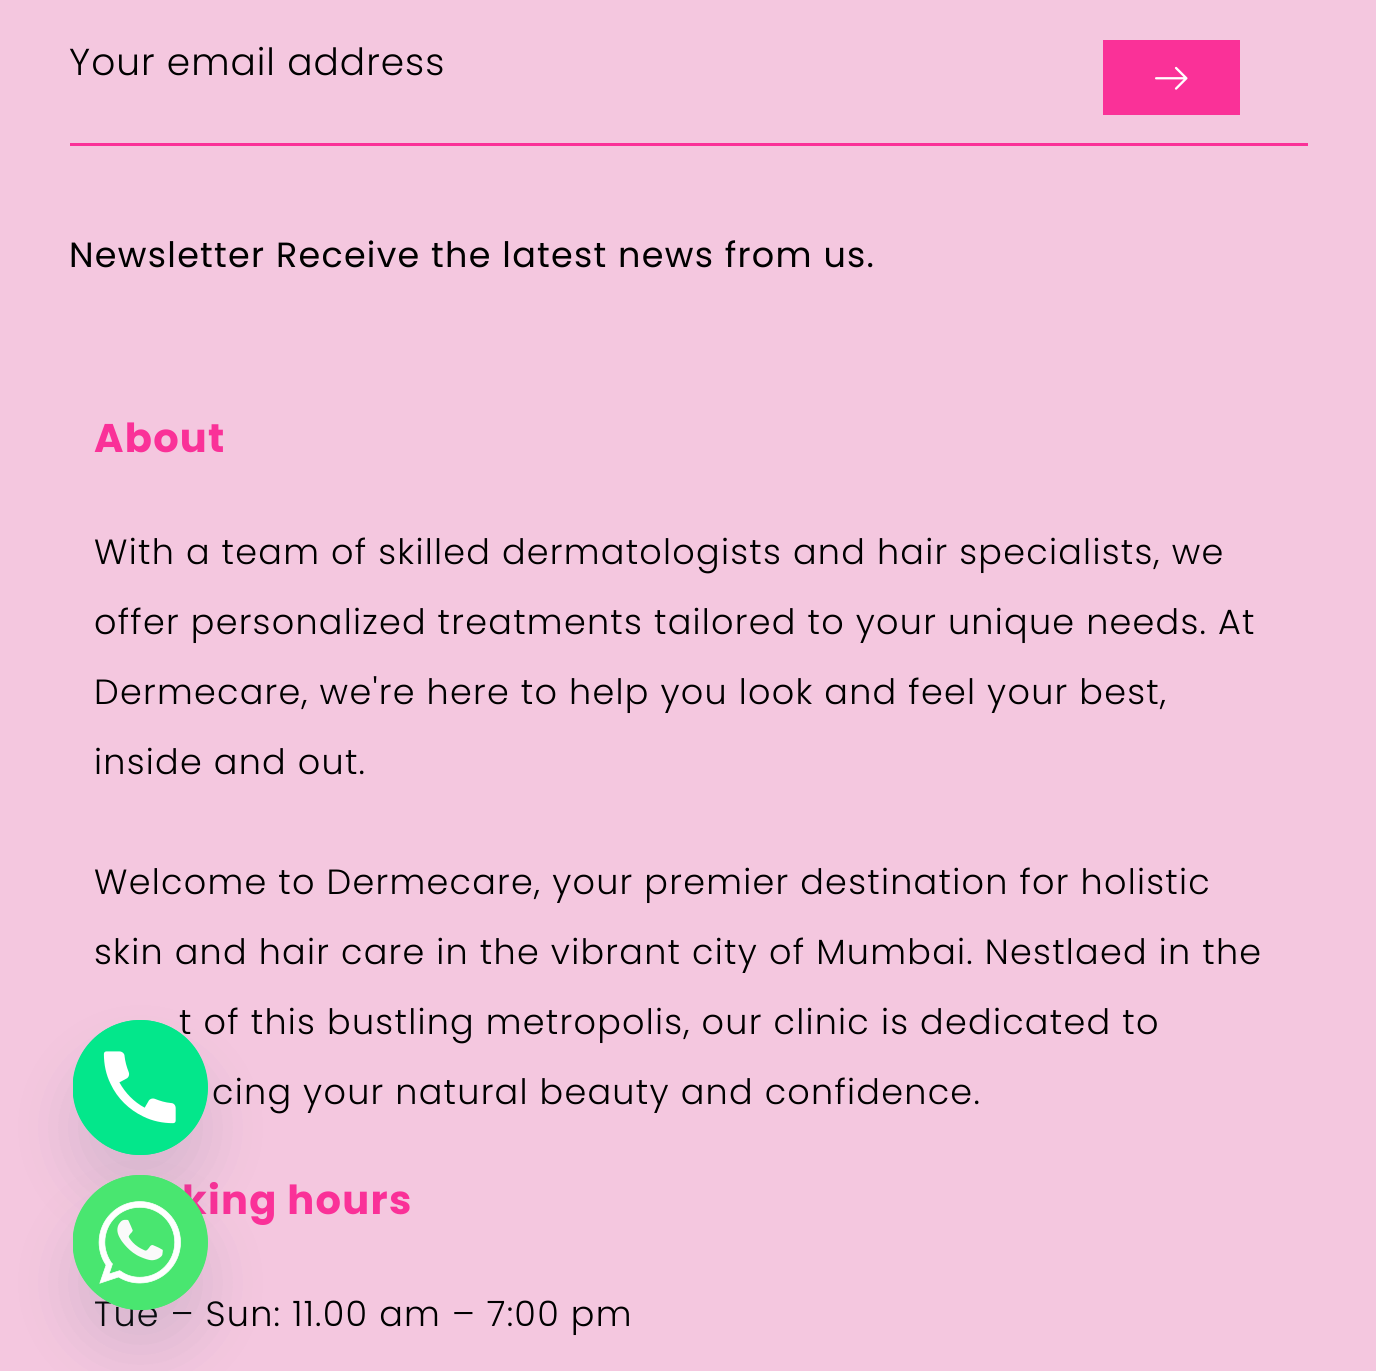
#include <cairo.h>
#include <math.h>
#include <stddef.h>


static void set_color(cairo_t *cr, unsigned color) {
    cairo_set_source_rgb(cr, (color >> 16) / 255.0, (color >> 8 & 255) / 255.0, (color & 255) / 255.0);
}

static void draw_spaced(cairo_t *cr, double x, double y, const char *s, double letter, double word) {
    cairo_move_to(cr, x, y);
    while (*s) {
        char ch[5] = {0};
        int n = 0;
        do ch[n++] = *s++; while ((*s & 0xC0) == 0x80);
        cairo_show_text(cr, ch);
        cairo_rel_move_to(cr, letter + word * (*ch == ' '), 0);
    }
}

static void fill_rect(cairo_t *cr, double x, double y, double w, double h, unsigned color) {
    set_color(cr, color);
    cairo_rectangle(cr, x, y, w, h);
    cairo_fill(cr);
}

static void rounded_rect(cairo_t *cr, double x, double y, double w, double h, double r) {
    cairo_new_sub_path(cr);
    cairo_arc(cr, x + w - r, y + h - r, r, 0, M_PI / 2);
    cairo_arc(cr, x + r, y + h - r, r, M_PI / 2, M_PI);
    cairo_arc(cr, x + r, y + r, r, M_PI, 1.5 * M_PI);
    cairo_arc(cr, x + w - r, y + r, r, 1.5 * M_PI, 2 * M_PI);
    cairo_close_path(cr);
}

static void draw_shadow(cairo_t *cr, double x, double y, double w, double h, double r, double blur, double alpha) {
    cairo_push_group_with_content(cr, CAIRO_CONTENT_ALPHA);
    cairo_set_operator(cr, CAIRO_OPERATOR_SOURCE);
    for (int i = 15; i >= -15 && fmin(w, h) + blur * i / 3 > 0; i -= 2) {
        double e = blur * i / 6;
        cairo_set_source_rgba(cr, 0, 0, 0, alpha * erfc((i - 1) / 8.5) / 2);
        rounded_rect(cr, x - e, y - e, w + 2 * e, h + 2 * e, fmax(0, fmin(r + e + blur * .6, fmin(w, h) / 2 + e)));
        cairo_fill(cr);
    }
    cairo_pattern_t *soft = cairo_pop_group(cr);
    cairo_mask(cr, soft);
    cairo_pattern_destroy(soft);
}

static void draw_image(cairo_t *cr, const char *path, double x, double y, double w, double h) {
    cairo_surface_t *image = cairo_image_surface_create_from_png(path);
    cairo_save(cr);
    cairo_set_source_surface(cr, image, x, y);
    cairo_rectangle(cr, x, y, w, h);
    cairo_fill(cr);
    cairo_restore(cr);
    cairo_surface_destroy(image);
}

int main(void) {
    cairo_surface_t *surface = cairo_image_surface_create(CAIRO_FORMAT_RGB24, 1376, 1371);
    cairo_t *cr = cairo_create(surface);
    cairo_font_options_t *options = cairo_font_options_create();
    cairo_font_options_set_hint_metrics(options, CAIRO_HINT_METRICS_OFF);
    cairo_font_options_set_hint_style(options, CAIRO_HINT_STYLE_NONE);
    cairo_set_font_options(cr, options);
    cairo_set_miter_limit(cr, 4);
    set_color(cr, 0xF4C7DF);
    cairo_paint(cr);
    fill_rect(cr, 70, 143, 1238, 3, 0xFA3198);
    cairo_select_font_face(cr, "Poppins Light", CAIRO_FONT_SLANT_NORMAL, CAIRO_FONT_WEIGHT_NORMAL);
    cairo_set_font_size(cr, 37.5);
    set_color(cr, 0x000000);
    draw_spaced(cr, 69, 75, "Your email address", 1, 0);
    fill_rect(cr, 1103, 40, 137, 75, 0xFA3198);
    draw_image(cr, "assets/img1.png", 1155, 66, 33, 24);
    cairo_select_font_face(cr, "Poppins", CAIRO_FONT_SLANT_NORMAL, CAIRO_FONT_WEIGHT_NORMAL);
    cairo_set_font_size(cr, 35);
    set_color(cr, 0x000000);
    draw_spaced(cr, 69, 267, "Newsletter Receive the latest news from us.", 1.25, 0);
    cairo_select_font_face(cr, "Poppins", CAIRO_FONT_SLANT_NORMAL, CAIRO_FONT_WEIGHT_BOLD);
    cairo_set_font_size(cr, 40);
    set_color(cr, 0xFA3198);
    draw_spaced(cr, 94, 452, "About", 1.25, 0);
    cairo_select_font_face(cr, "Poppins Light", CAIRO_FONT_SLANT_NORMAL, CAIRO_FONT_WEIGHT_NORMAL);
    cairo_set_font_size(cr, 35);
    set_color(cr, 0x000000);
    draw_spaced(cr, 94, 564, "With a team of skilled dermatologists and hair specialists, we", 1.25, 0);
    draw_spaced(cr, 94, 634, "offer personalized treatments tailored to your unique needs. At", 1.25, 0);
    draw_spaced(cr, 94, 704, "Dermecare, we're here to help you look and feel your best,", 1.25, 0);
    draw_spaced(cr, 94, 774, "inside and out.", 1.25, 0);
    draw_spaced(cr, 94, 894, "Welcome to Dermecare, your premier destination for holistic", 1.25, 0);
    draw_spaced(cr, 94, 964, "skin and hair care in the vibrant city of Mumbai. Nestlaed in the", 1.25, 0);
    draw_spaced(cr, 179, 1034, "t of this bustling metropolis, our clinic is dedicated to", 1.25, 0);
    draw_spaced(cr, 212, 1104, "cing your natural beauty and confidence.", 1.25, 0);
    cairo_select_font_face(cr, "Poppins", CAIRO_FONT_SLANT_NORMAL, CAIRO_FONT_WEIGHT_BOLD);
    cairo_set_font_size(cr, 40);
    set_color(cr, 0xFA3198);
    draw_spaced(cr, 182, 1214, "king hours", 1.25, 0);
    cairo_select_font_face(cr, "Poppins Light", CAIRO_FONT_SLANT_NORMAL, CAIRO_FONT_WEIGHT_NORMAL);
    cairo_set_font_size(cr, 35);
    set_color(cr, 0x000000);
    draw_spaced(cr, 94, 1326, "Tue – Sun: 11.00 am – 7:00 pm", 1.25, 0);
    set_color(cr, 0x49687E);
    draw_shadow(cr, 73, 1060, 135, 135, 67.5, 30, 0.16);
    set_color(cr, 0x03E78B);
    cairo_arc(cr, 140.5, 1087.5, 67.5, 0, 2 * M_PI);
    cairo_fill(cr);
    draw_image(cr, "assets/img2.png", 73, 1020, 135, 135);
    set_color(cr, 0x49687E);
    draw_shadow(cr, 73, 1215, 135, 135, 67.5, 30, 0.16);
    set_color(cr, 0x49E670);
    cairo_arc(cr, 140.5, 1242.5, 67.5, 0, 2 * M_PI);
    cairo_fill(cr);
    draw_image(cr, "assets/img3.png", 73, 1175, 135, 135);
    cairo_surface_write_to_png(surface, "output.png");
    cairo_font_options_destroy(options);
    cairo_destroy(cr);
    cairo_surface_destroy(surface);
    return 0;
}
